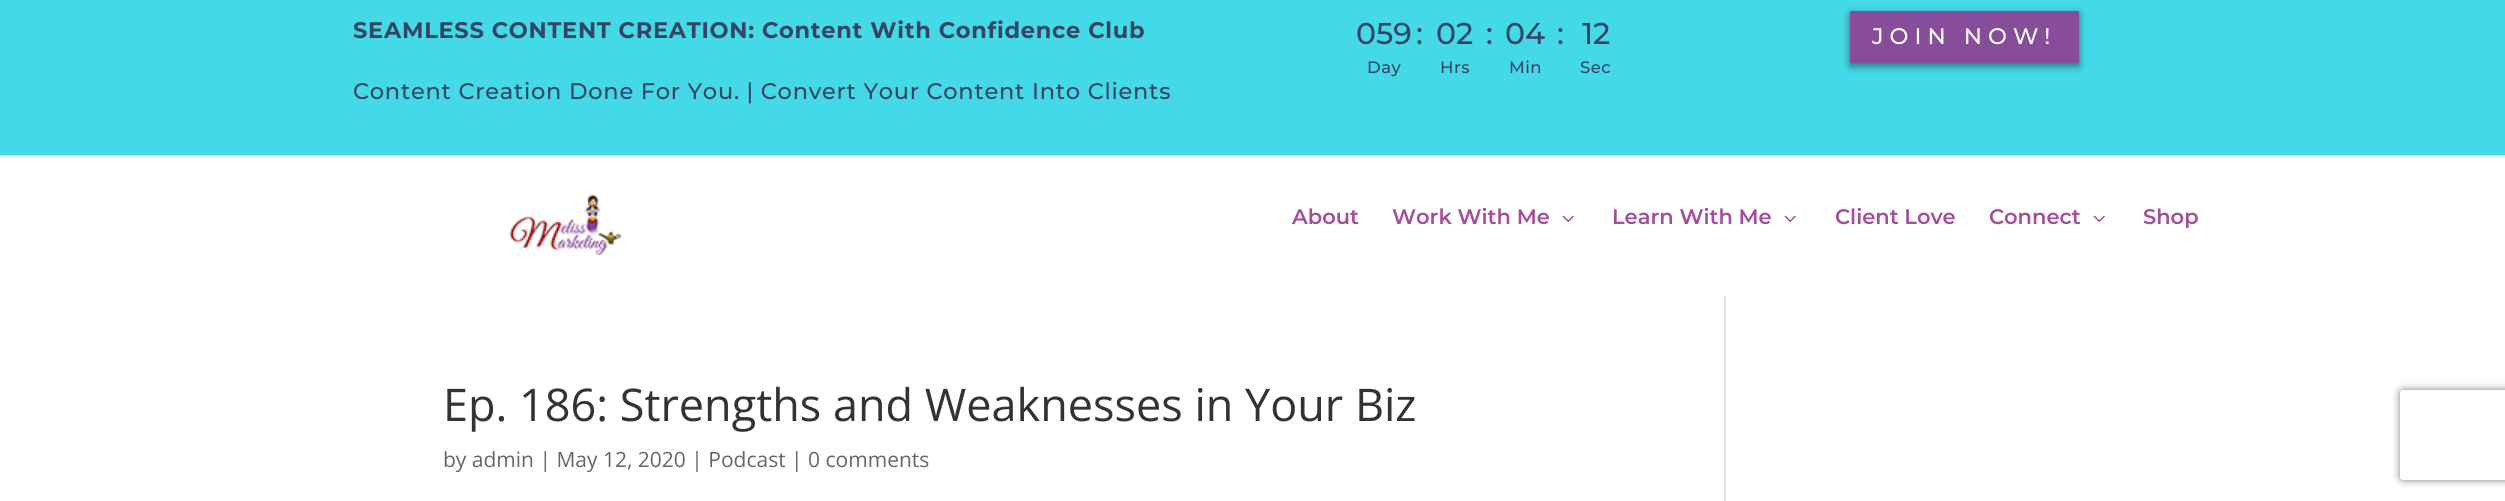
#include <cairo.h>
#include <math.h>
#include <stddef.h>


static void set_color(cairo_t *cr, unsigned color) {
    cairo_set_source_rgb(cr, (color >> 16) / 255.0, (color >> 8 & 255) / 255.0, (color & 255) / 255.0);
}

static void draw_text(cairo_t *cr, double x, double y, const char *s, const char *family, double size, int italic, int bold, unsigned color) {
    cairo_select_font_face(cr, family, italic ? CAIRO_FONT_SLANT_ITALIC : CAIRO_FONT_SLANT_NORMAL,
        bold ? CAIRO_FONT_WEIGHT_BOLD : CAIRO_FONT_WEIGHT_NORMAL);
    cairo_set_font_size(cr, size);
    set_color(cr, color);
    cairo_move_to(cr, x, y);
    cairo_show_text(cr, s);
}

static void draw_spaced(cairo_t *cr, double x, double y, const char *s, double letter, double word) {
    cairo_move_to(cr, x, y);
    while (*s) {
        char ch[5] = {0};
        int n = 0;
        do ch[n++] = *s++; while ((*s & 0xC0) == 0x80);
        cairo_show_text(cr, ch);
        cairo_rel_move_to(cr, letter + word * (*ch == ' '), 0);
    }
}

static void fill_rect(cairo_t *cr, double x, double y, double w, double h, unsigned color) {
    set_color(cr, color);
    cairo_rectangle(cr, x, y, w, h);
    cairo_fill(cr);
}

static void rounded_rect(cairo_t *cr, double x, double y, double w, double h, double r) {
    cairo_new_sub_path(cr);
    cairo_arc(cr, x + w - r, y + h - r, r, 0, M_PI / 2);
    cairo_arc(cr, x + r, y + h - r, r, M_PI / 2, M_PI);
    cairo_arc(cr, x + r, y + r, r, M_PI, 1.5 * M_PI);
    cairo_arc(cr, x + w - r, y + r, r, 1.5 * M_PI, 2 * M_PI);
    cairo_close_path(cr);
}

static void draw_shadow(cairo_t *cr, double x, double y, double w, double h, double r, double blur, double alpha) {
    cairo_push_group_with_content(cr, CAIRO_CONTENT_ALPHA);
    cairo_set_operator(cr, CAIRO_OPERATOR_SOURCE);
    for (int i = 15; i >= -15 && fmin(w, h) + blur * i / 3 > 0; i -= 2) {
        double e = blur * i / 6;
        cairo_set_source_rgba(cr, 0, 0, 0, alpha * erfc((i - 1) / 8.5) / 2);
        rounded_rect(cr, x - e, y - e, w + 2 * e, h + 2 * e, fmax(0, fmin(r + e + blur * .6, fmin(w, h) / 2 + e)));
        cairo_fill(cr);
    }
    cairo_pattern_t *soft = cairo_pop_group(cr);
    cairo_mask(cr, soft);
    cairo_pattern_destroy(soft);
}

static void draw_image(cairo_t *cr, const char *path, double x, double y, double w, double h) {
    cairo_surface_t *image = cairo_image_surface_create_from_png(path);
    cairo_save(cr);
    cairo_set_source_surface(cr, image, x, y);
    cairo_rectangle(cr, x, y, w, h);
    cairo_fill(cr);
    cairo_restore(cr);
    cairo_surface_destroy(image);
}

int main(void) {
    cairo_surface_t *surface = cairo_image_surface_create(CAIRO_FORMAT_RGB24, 2505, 501);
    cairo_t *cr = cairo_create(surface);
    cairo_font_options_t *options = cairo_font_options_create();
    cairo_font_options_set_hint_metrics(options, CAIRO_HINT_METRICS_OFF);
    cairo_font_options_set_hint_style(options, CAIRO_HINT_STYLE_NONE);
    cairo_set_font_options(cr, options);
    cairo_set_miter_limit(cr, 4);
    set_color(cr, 0xFFFFFF);
    cairo_paint(cr);
    fill_rect(cr, 0, 0, 2505, 155, 0x44D9E6);
    cairo_select_font_face(cr, "Montserrat", CAIRO_FONT_SLANT_NORMAL, CAIRO_FONT_WEIGHT_BOLD);
    cairo_set_font_size(cr, 22.5);
    set_color(cr, 0x344563);
    draw_spaced(cr, 353, 38, "SEAMLESS CONTENT CREATION: Content With Confidence Club", 0.75, 0);
    cairo_select_font_face(cr, "Montserrat Medium", CAIRO_FONT_SLANT_NORMAL, CAIRO_FONT_WEIGHT_NORMAL);
    draw_spaced(cr, 353, 99, "Content Creation Done For You. | Convert Your Content Into Clients", 0.75, 0);
    draw_text(cr, 1356, 44, "059", "Montserrat Medium", 30, 0, 0, 0x344563);
    cairo_set_font_size(cr, 16.5);
    draw_spaced(cr, 1367, 73, "Day", 0.5, 0);
    draw_text(cr, 1416, 44, ":", "Montserrat Medium", 30, 0, 0, 0x344563);
    draw_text(cr, 1436, 44, "02", "Montserrat Medium", 30, 0, 0, 0x344563);
    cairo_set_font_size(cr, 16.5);
    draw_spaced(cr, 1440, 73, "Hrs", 0.5, 0);
    draw_text(cr, 1486, 44, ":", "Montserrat Medium", 30, 0, 0, 0x344563);
    draw_text(cr, 1505, 44, "04", "Montserrat Medium", 30, 0, 0, 0x344563);
    cairo_set_font_size(cr, 16.5);
    draw_spaced(cr, 1509, 73, "Min", 0.5, 0);
    draw_text(cr, 1557, 44, ":", "Montserrat Medium", 30, 0, 0, 0x344563);
    draw_text(cr, 1582, 44, "12", "Montserrat Medium", 30, 0, 0, 0x344563);
    cairo_set_font_size(cr, 16.5);
    draw_spaced(cr, 1580, 73, "Sec", 0.5, 0);
    set_color(cr, 0x000000);
    draw_shadow(cr, 1850, 14, 229, 52, 0, 4, 0.48);
    fill_rect(cr, 1850, 11, 229, 52, 0x874C9A);
    cairo_set_font_size(cr, 22.5);
    set_color(cr, 0xFFFFFF);
    draw_spaced(cr, 1872, 44, "JOIN NOW!", 6, 0);
    draw_image(cr, "assets/img1.png", 509, 195, 113, 60);
    draw_text(cr, 1292, 224, "About", "Montserrat SemiBold", 21, 0, 0, 0xA64C9A);
    draw_text(cr, 1392, 224, "Work With Me", "Montserrat SemiBold", 21, 0, 0, 0xA64C9A);
    draw_image(cr, "assets/img2.png", 1562, 215, 12, 7);
    draw_text(cr, 1612, 224, "Learn With Me", "Montserrat SemiBold", 21, 0, 0, 0xA64C9A);
    draw_image(cr, "assets/img2.png", 1784, 215, 12, 7);
    draw_text(cr, 1835, 224, "Client Love", "Montserrat SemiBold", 21, 0, 0, 0xA64C9A);
    draw_text(cr, 1989, 224, "Connect", "Montserrat SemiBold", 21, 0, 0, 0xA64C9A);
    draw_image(cr, "assets/img2.png", 2093, 215, 12, 7);
    draw_text(cr, 2143, 224, "Shop", "Montserrat SemiBold", 21, 0, 0, 0xA64C9A);
    draw_text(cr, 443, 421, "Ep. 186: Strengths and Weaknesses in Your Biz", "Open Sans", 45, 0, 0, 0x333333);
    draw_text(cr, 443, 467, "by admin | May 12, 2020 | Podcast | 0 comments", "Open Sans", 21, 0, 0, 0x666666);
    fill_rect(cr, 1724, 296, 2, 205, 0xE2E2E2);
    cairo_save(cr);
    cairo_set_fill_rule(cr, CAIRO_FILL_RULE_EVEN_ODD);
    cairo_new_path(cr);
    cairo_move_to(cr, 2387, 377);
    cairo_line_to(cr, 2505, 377);
    cairo_line_to(cr, 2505, 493);
    cairo_line_to(cr, 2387, 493);
    cairo_close_path(cr);
    cairo_move_to(cr, 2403, 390);
    cairo_line_to(cr, 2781, 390);
    cairo_curve_to(cr, 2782.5, 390, 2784, 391.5, 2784, 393);
    cairo_line_to(cr, 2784, 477);
    cairo_curve_to(cr, 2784, 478.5, 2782.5, 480, 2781, 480);
    cairo_line_to(cr, 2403, 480);
    cairo_curve_to(cr, 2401.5, 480, 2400, 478.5, 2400, 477);
    cairo_line_to(cr, 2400, 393);
    cairo_curve_to(cr, 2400, 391.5, 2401.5, 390, 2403, 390);
    cairo_close_path(cr);
    cairo_clip(cr);
    set_color(cr, 0x808080);
    draw_shadow(cr, 2400, 390, 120, 90, 3, 4, 1);
    cairo_restore(cr);
    cairo_surface_write_to_png(surface, "output.png");
    cairo_font_options_destroy(options);
    cairo_destroy(cr);
    cairo_surface_destroy(surface);
    return 0;
}
